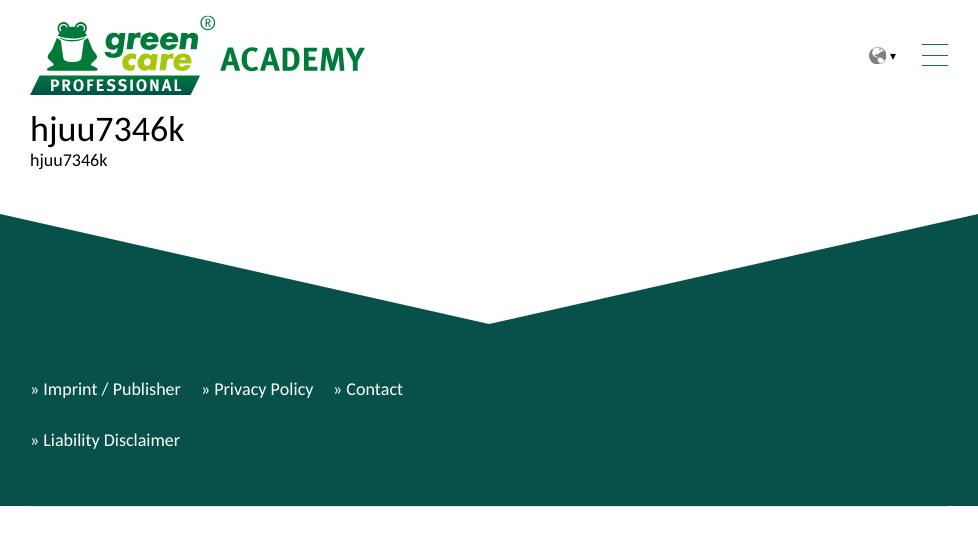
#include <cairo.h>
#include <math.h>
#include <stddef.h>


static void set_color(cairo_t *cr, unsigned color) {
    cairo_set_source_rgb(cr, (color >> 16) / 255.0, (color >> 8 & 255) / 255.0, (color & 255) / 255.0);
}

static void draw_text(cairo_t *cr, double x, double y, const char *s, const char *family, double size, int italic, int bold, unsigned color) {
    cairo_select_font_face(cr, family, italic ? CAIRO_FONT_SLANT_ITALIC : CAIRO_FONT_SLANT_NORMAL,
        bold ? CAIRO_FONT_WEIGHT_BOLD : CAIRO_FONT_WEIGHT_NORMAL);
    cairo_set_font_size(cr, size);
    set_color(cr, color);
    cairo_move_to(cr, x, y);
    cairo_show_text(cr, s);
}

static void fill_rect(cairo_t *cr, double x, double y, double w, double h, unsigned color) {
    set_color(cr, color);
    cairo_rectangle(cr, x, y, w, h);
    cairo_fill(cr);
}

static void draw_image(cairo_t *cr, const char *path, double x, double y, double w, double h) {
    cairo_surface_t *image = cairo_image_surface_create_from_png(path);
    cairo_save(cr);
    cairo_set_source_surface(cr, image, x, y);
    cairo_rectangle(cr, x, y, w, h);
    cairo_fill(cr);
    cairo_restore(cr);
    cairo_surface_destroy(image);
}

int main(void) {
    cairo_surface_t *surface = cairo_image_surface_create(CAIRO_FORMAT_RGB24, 978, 553);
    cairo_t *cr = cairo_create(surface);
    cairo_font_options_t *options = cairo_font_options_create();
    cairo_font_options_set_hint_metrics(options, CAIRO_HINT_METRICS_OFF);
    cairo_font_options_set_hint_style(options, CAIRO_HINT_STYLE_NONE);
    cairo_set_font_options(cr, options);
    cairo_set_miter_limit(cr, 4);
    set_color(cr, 0xFFFFFF);
    cairo_paint(cr);
    draw_image(cr, "assets/img1.png", 30, 15, 335, 80);
    draw_image(cr, "assets/img2.png", 869, 47, 17, 17);
    draw_text(cr, 890, 60, "▾", "DejaVu Sans", 12, 0, 0, 0x000000);
    fill_rect(cr, 922, 44, 26, 1, 0x0E793E);
    fill_rect(cr, 922, 55, 26, 1, 0x0E793E);
    fill_rect(cr, 922, 65, 26, 1, 0x0E793E);
    draw_text(cr, 30, 141, "hjuu7346k", "Carlito", 36, 0, 0, 0x000000);
    draw_text(cr, 30, 166, "hjuu7346k", "Carlito", 18, 0, 0, 0x000000);
    fill_rect(cr, 0, 327, 978, 179, 0x07514A);
    cairo_new_path(cr);
    cairo_move_to(cr, 0, 214);
    cairo_line_to(cr, 0, 327);
    cairo_line_to(cr, 978, 327);
    cairo_line_to(cr, 978, 214);
    cairo_line_to(cr, 489, 324);
    cairo_close_path(cr);
    cairo_fill(cr);
    draw_text(cr, 30, 395, "» Imprint / Publisher", "Carlito", 18, 0, 0, 0xFFFFFF);
    draw_text(cr, 201, 395, "» Privacy Policy", "Carlito", 18, 0, 0, 0xFFFFFF);
    draw_text(cr, 333, 395, "» Contact", "Carlito", 18, 0, 0, 0xFFFFFF);
    draw_text(cr, 30, 446, "» Liability Disclaimer", "Carlito", 18, 0, 0, 0xFFFFFF);
    fill_rect(cr, 30, 506, 918, 1, 0xE5E5E5);
    cairo_surface_write_to_png(surface, "output.png");
    cairo_font_options_destroy(options);
    cairo_destroy(cr);
    cairo_surface_destroy(surface);
    return 0;
}
